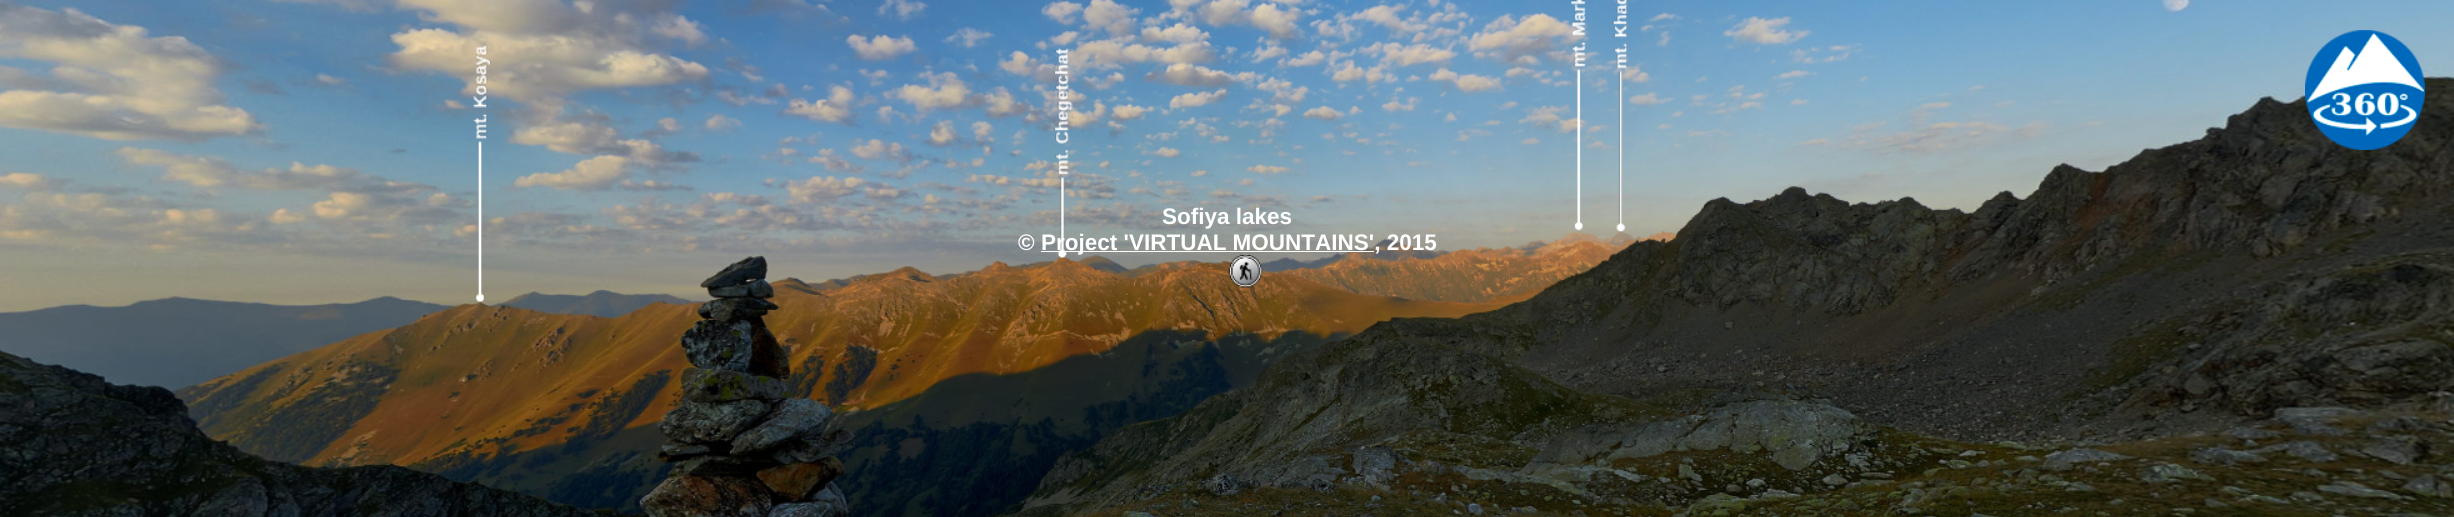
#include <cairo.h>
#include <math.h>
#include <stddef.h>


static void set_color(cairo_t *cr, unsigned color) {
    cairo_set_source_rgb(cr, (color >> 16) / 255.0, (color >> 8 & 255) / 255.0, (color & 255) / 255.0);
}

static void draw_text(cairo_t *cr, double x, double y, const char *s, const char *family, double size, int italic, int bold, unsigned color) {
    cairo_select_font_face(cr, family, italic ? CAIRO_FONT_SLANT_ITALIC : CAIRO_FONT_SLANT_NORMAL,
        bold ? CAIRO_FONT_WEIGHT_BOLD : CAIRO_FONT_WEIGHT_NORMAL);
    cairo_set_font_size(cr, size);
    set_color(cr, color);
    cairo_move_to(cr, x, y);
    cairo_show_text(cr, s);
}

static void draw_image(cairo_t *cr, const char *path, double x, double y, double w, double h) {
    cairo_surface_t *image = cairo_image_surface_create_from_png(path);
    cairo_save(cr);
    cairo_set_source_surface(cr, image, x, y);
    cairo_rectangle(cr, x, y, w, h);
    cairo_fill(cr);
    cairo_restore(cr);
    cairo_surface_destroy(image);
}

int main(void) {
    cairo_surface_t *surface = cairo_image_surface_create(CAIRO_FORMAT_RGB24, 2454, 517);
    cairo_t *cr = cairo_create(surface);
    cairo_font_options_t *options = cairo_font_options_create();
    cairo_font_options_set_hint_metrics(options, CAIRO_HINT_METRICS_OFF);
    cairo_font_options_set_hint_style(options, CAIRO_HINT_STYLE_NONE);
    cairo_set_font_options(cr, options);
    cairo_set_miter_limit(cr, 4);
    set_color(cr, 0xFFFFFF);
    cairo_paint(cr);
    draw_image(cr, "assets/img1.png", 0, 0, 2454, 517);
    draw_image(cr, "assets/img2.png", 2305, 30, 120, 120);
    draw_text(cr, 1162, 224, "Sofiya lakes", "Liberation Sans", 22.5, 0, 1, 0xFEFEFE);
    draw_text(cr, 1018, 250, "©", "Liberation Sans", 22.5, 0, 1, 0xFEFEFE);
    cairo_set_source_rgba(cr, 1, 1, 1, 0.99);
    cairo_rectangle(cr, 1041, 251, 333, 1);
    cairo_fill(cr);
    draw_text(cr, 1041, 250, "Project 'VIRTUAL MOUNTAINS', 2015", "Liberation Sans", 22.5, 0, 1, 0xFEFEFE);
    cairo_surface_write_to_png(surface, "output.png");
    cairo_font_options_destroy(options);
    cairo_destroy(cr);
    cairo_surface_destroy(surface);
    return 0;
}
